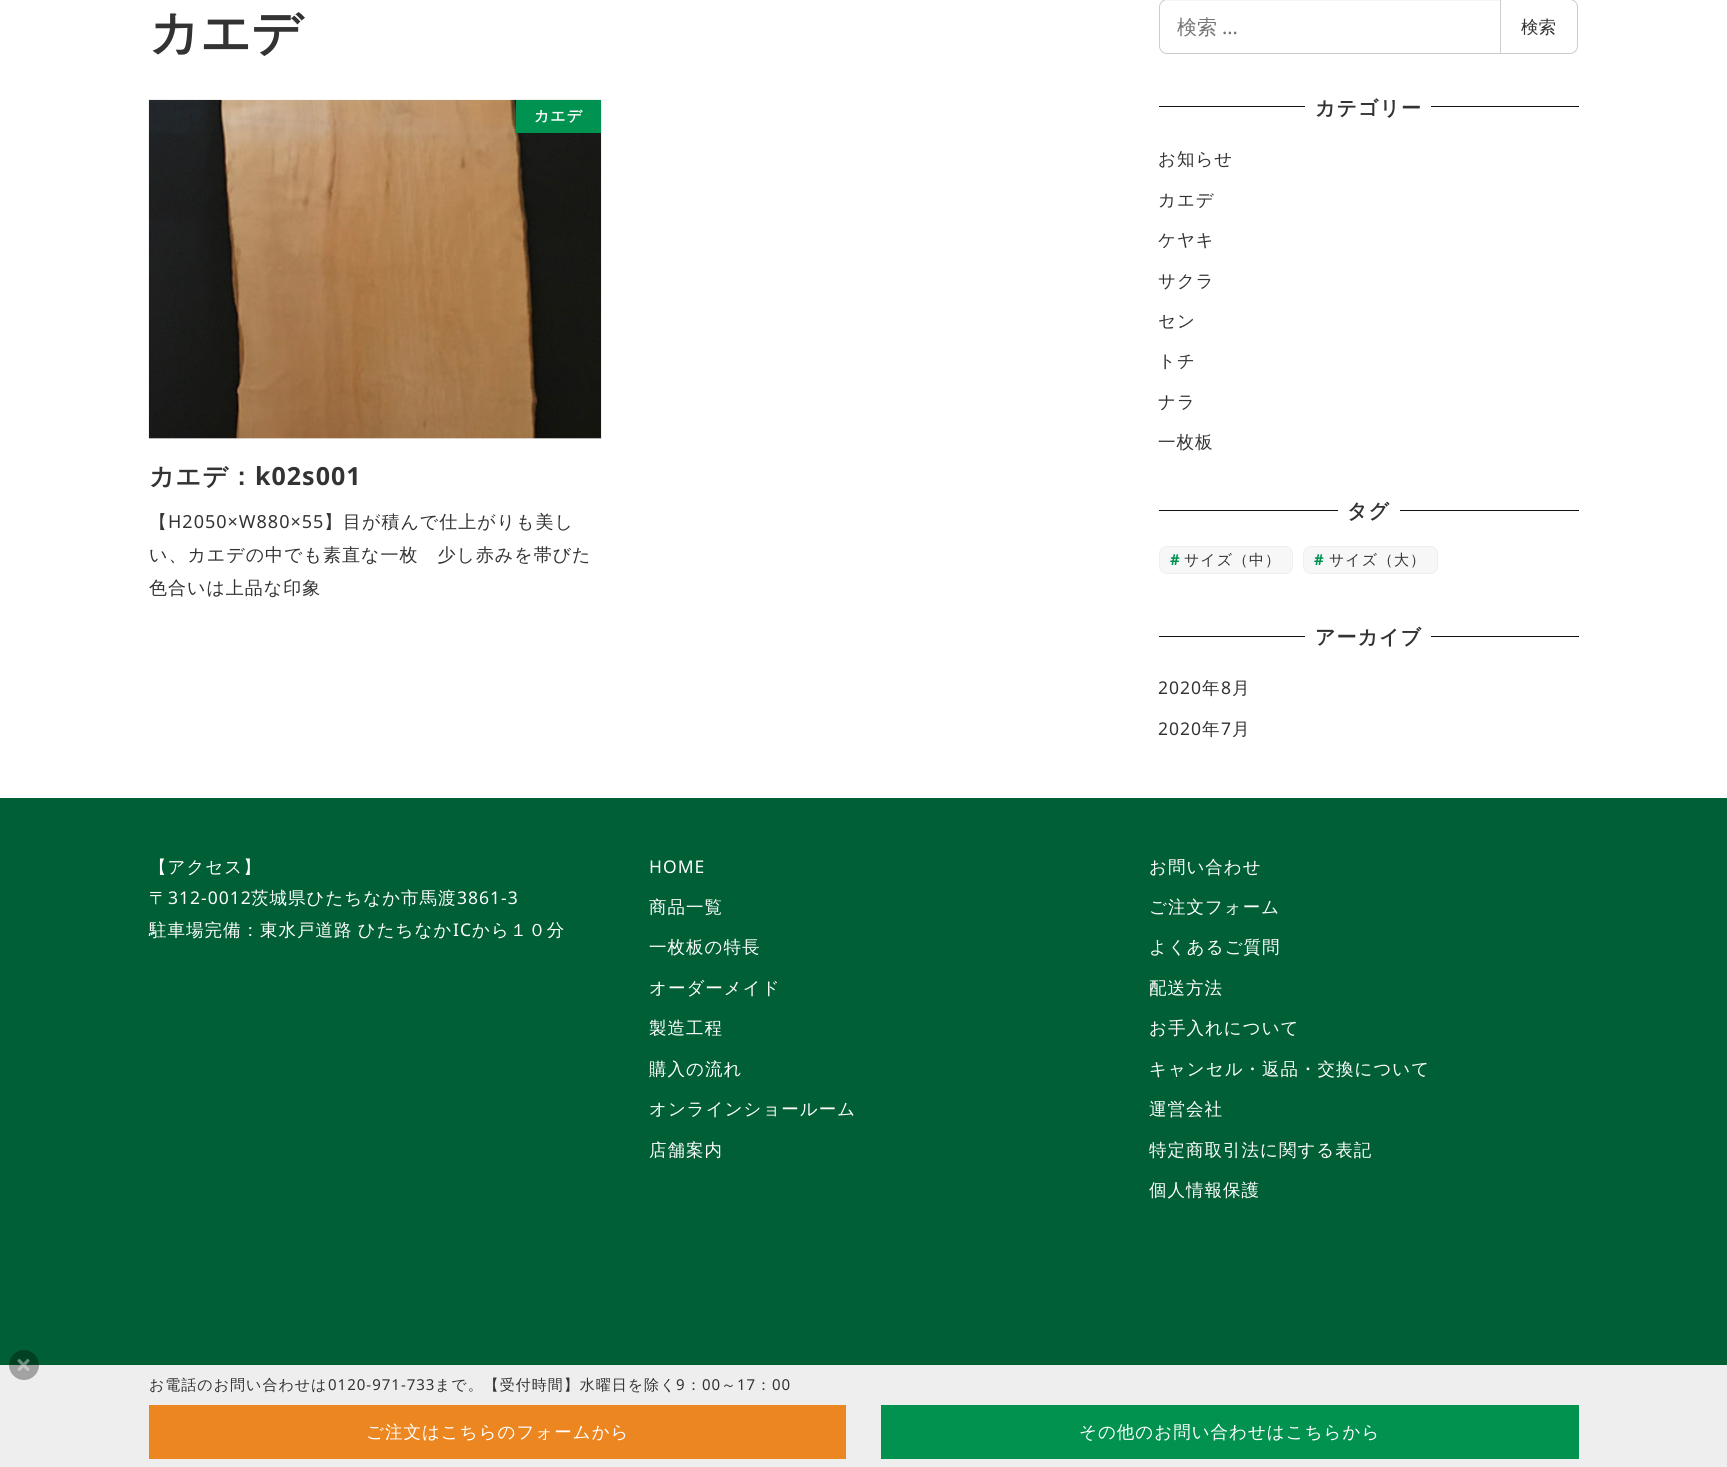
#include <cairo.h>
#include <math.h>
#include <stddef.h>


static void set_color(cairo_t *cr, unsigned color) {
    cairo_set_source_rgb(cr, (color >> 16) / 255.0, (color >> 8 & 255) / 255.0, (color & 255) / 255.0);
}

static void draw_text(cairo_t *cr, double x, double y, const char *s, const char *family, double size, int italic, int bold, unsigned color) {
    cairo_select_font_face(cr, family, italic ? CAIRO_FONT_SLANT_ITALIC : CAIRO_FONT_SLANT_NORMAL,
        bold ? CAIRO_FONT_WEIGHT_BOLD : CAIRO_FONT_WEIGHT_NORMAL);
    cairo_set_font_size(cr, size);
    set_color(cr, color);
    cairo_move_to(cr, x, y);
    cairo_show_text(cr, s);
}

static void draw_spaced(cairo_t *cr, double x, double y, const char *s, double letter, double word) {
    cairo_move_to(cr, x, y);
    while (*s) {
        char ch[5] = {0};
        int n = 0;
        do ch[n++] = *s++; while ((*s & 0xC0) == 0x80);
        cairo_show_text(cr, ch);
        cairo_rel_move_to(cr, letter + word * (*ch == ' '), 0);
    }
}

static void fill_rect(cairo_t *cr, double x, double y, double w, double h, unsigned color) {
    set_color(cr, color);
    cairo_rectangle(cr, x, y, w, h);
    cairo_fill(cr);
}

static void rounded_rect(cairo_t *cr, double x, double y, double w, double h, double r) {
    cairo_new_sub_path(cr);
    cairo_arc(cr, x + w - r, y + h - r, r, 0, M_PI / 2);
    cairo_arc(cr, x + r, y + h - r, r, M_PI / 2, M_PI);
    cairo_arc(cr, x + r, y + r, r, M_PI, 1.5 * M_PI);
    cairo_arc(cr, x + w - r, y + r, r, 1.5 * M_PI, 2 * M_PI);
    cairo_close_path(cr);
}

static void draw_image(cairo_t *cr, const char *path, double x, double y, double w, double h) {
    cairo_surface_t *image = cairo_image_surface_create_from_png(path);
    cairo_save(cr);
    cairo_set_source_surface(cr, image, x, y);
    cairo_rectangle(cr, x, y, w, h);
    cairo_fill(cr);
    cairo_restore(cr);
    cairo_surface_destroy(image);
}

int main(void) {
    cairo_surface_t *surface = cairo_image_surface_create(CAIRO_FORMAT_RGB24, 1727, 1467);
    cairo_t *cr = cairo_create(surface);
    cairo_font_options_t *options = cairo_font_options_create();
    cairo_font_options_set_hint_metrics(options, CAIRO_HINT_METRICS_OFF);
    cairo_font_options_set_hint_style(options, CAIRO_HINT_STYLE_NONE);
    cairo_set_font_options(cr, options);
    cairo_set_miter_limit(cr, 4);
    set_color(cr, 0xFFFFFF);
    cairo_paint(cr);
    draw_text(cr, 149, 50, "カエデ", "WenQuanYi Zen Hei", 50, 0, 1, 0x333333);
    fill_rect(cr, 149, 438, 452, 1, 0xEEEEEE);
    draw_image(cr, "assets/img1.png", 148, 99, 454, 340);
    fill_rect(cr, 516, 100, 85, 33, 0x009250);
    cairo_set_font_size(cr, 15);
    set_color(cr, 0xFFFFFF);
    draw_spaced(cr, 534, 121, "カエデ", 1, 0);
    cairo_set_font_size(cr, 25);
    set_color(cr, 0x333333);
    draw_spaced(cr, 149, 485, "カエデ：", 1, 0);
    cairo_select_font_face(cr, "Noto Sans", CAIRO_FONT_SLANT_NORMAL, CAIRO_FONT_WEIGHT_BOLD);
    draw_spaced(cr, 255, 485, "k02s001", 1, 0);
    cairo_select_font_face(cr, "WenQuanYi Zen Hei Medium", CAIRO_FONT_SLANT_NORMAL, CAIRO_FONT_WEIGHT_NORMAL);
    cairo_set_font_size(cr, 18);
    draw_spaced(cr, 149, 528, "【", 1, 0);
    cairo_select_font_face(cr, "Noto Sans", CAIRO_FONT_SLANT_NORMAL, CAIRO_FONT_WEIGHT_NORMAL);
    draw_spaced(cr, 168, 528, "H2050×W880×55", 1, 0);
    cairo_select_font_face(cr, "WenQuanYi Zen Hei Medium", CAIRO_FONT_SLANT_NORMAL, CAIRO_FONT_WEIGHT_NORMAL);
    draw_spaced(cr, 324, 528, "】目が積んで仕上がりも美し", 1, 0);
    draw_spaced(cr, 149, 561, "い、カエデの中でも素直な一枚　少し赤みを帯びた", 1, 0);
    draw_spaced(cr, 149, 594, "色合いは上品な印象", 1, 0);
    cairo_new_path(cr);
    cairo_move_to(cr, 1500.5, -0.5);
    cairo_line_to(cr, 1570, -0.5);
    cairo_curve_to(cr, 1574, -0.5, 1577.5, 3, 1577.5, 7);
    cairo_line_to(cr, 1577.5, 46);
    cairo_curve_to(cr, 1577.5, 50, 1574, 53.5, 1570, 53.5);
    cairo_line_to(cr, 1500.5, 53.5);
    cairo_close_path(cr);
    set_color(cr, 0xCCCCCC);
    cairo_set_line_width(cr, 1);
    cairo_stroke(cr);
    set_color(cr, 0xFFFFFF);
    cairo_new_path(cr);
    cairo_move_to(cr, 1167, -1);
    cairo_line_to(cr, 1501, -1);
    cairo_line_to(cr, 1501, 54);
    cairo_line_to(cr, 1167, 54);
    cairo_curve_to(cr, 1162.5, 54, 1159, 50.5, 1159, 46);
    cairo_line_to(cr, 1159, 7);
    cairo_curve_to(cr, 1159, 2.5, 1162.5, -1, 1167, -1);
    cairo_close_path(cr);
    cairo_fill(cr);
    set_color(cr, 0xF6F6F6);
    cairo_new_path(cr);
    cairo_move_to(cr, 1166, 1);
    cairo_line_to(cr, 1500, 1);
    cairo_line_to(cr, 1500, 0);
    cairo_line_to(cr, 1165, 0);
    cairo_curve_to(cr, 1161, 1, 1160, 5, 1160, 8);
    cairo_curve_to(cr, 1160, 4, 1163, 1, 1166, 1);
    cairo_close_path(cr);
    cairo_fill(cr);
    cairo_new_path(cr);
    cairo_move_to(cr, 1167, -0.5);
    cairo_line_to(cr, 1500.5, -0.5);
    cairo_line_to(cr, 1500.5, 53.5);
    cairo_line_to(cr, 1167, 53.5);
    cairo_curve_to(cr, 1163, 53.5, 1159.5, 50, 1159.5, 46);
    cairo_line_to(cr, 1159.5, 7);
    cairo_curve_to(cr, 1159.5, 3, 1163, -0.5, 1167, -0.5);
    cairo_close_path(cr);
    set_color(cr, 0xCCCCCC);
    cairo_stroke(cr);
    draw_text(cr, 1177, 34, "検索", "WenQuanYi Zen Hei Medium", 20, 0, 0, 0x757575);
    draw_text(cr, 1222, 34, "…", "Noto Sans", 20, 0, 0, 0x757575);
    draw_text(cr, 1521, 33, "検索", "WenQuanYi Zen Hei Medium", 17.5, 0, 0, 0x333333);
    fill_rect(cr, 1159, 106, 146, 1, 0x111111);
    cairo_select_font_face(cr, "WenQuanYi Zen Hei", CAIRO_FONT_SLANT_NORMAL, CAIRO_FONT_WEIGHT_BOLD);
    cairo_set_font_size(cr, 20);
    set_color(cr, 0x333333);
    draw_spaced(cr, 1315, 115, "カテゴリー", 1, 0);
    fill_rect(cr, 1431, 106, 148, 1, 0x111111);
    cairo_select_font_face(cr, "WenQuanYi Zen Hei Medium", CAIRO_FONT_SLANT_NORMAL, CAIRO_FONT_WEIGHT_NORMAL);
    cairo_set_font_size(cr, 17.5);
    set_color(cr, 0x333333);
    draw_spaced(cr, 1158, 165, "お知らせ", 1, 0);
    draw_spaced(cr, 1158, 206, "カエデ", 1, 0);
    draw_spaced(cr, 1158, 246, "ケヤキ", 1, 0);
    draw_spaced(cr, 1158, 287, "サクラ", 1, 0);
    draw_spaced(cr, 1158, 327, "セン", 1, 0);
    draw_spaced(cr, 1158, 367, "トチ", 1, 0);
    draw_spaced(cr, 1158, 408, "ナラ", 1, 0);
    draw_spaced(cr, 1158, 448, "一枚板", 1, 0);
    fill_rect(cr, 1159, 510, 179, 1, 0x111111);
    cairo_select_font_face(cr, "WenQuanYi Zen Hei", CAIRO_FONT_SLANT_NORMAL, CAIRO_FONT_WEIGHT_BOLD);
    cairo_set_font_size(cr, 20);
    set_color(cr, 0x333333);
    draw_spaced(cr, 1347, 518, "タグ", 1, 0);
    fill_rect(cr, 1400, 510, 179, 1, 0x111111);
    set_color(cr, 0xF7F7F7);
    rounded_rect(cr, 1159.5, 546.5, 133, 27, 7.5);
    cairo_fill_preserve(cr);
    set_color(cr, 0xEEEEEE);
    cairo_stroke(cr);
    cairo_select_font_face(cr, "Noto Sans", CAIRO_FONT_SLANT_NORMAL, CAIRO_FONT_WEIGHT_BOLD);
    cairo_set_font_size(cr, 15);
    set_color(cr, 0x009250);
    draw_spaced(cr, 1170, 565, "#", 1, 0);
    cairo_select_font_face(cr, "WenQuanYi Zen Hei Medium", CAIRO_FONT_SLANT_NORMAL, CAIRO_FONT_WEIGHT_NORMAL);
    set_color(cr, 0x333333);
    draw_spaced(cr, 1184, 565, "サイズ（中）", 1, 0);
    set_color(cr, 0xF7F7F7);
    rounded_rect(cr, 1303.5, 546.5, 134, 27, 7.5);
    cairo_fill_preserve(cr);
    set_color(cr, 0xEEEEEE);
    cairo_stroke(cr);
    cairo_select_font_face(cr, "Noto Sans", CAIRO_FONT_SLANT_NORMAL, CAIRO_FONT_WEIGHT_BOLD);
    set_color(cr, 0x009250);
    draw_spaced(cr, 1314, 565, "#", 1, 0);
    cairo_select_font_face(cr, "WenQuanYi Zen Hei Medium", CAIRO_FONT_SLANT_NORMAL, CAIRO_FONT_WEIGHT_NORMAL);
    set_color(cr, 0x333333);
    draw_spaced(cr, 1329, 565, "サイズ（大）", 1, 0);
    fill_rect(cr, 1159, 636, 146, 1, 0x111111);
    cairo_select_font_face(cr, "WenQuanYi Zen Hei", CAIRO_FONT_SLANT_NORMAL, CAIRO_FONT_WEIGHT_BOLD);
    cairo_set_font_size(cr, 20);
    set_color(cr, 0x333333);
    draw_spaced(cr, 1315, 644, "アーカイブ", 1, 0);
    fill_rect(cr, 1431, 636, 148, 1, 0x111111);
    cairo_select_font_face(cr, "Noto Sans", CAIRO_FONT_SLANT_NORMAL, CAIRO_FONT_WEIGHT_NORMAL);
    cairo_set_font_size(cr, 17.5);
    set_color(cr, 0x333333);
    draw_spaced(cr, 1158, 694, "2020", 1, 0);
    cairo_select_font_face(cr, "WenQuanYi Zen Hei Medium", CAIRO_FONT_SLANT_NORMAL, CAIRO_FONT_WEIGHT_NORMAL);
    draw_spaced(cr, 1202, 694, "年", 1, 0);
    cairo_select_font_face(cr, "Noto Sans", CAIRO_FONT_SLANT_NORMAL, CAIRO_FONT_WEIGHT_NORMAL);
    draw_spaced(cr, 1221, 694, "8", 1, 0);
    cairo_select_font_face(cr, "WenQuanYi Zen Hei Medium", CAIRO_FONT_SLANT_NORMAL, CAIRO_FONT_WEIGHT_NORMAL);
    draw_spaced(cr, 1232, 694, "月", 1, 0);
    cairo_select_font_face(cr, "Noto Sans", CAIRO_FONT_SLANT_NORMAL, CAIRO_FONT_WEIGHT_NORMAL);
    draw_spaced(cr, 1158, 735, "2020", 1, 0);
    cairo_select_font_face(cr, "WenQuanYi Zen Hei Medium", CAIRO_FONT_SLANT_NORMAL, CAIRO_FONT_WEIGHT_NORMAL);
    draw_spaced(cr, 1202, 735, "年", 1, 0);
    cairo_select_font_face(cr, "Noto Sans", CAIRO_FONT_SLANT_NORMAL, CAIRO_FONT_WEIGHT_NORMAL);
    draw_spaced(cr, 1221, 735, "7", 1, 0);
    cairo_select_font_face(cr, "WenQuanYi Zen Hei Medium", CAIRO_FONT_SLANT_NORMAL, CAIRO_FONT_WEIGHT_NORMAL);
    draw_spaced(cr, 1232, 735, "月", 1, 0);
    fill_rect(cr, 0, 798, 1727, 567, 0x005F34);
    set_color(cr, 0xFFFFFF);
    draw_spaced(cr, 149, 873, "【アクセス】", 1, 0);
    draw_spaced(cr, 149, 904, "〒", 1, 0);
    cairo_select_font_face(cr, "Noto Sans", CAIRO_FONT_SLANT_NORMAL, CAIRO_FONT_WEIGHT_NORMAL);
    draw_spaced(cr, 168, 904, "312-0012", 1, 0);
    cairo_select_font_face(cr, "WenQuanYi Zen Hei Medium", CAIRO_FONT_SLANT_NORMAL, CAIRO_FONT_WEIGHT_NORMAL);
    draw_spaced(cr, 251, 904, "茨城県ひたちなか市馬渡", 1, 0);
    cairo_select_font_face(cr, "Noto Sans", CAIRO_FONT_SLANT_NORMAL, CAIRO_FONT_WEIGHT_NORMAL);
    draw_spaced(cr, 457, 904, "3861-3", 1, 0);
    cairo_select_font_face(cr, "WenQuanYi Zen Hei Medium", CAIRO_FONT_SLANT_NORMAL, CAIRO_FONT_WEIGHT_NORMAL);
    draw_spaced(cr, 149, 936, "駐車場完備：東水戸道路 ひたちなか", 1, -1);
    cairo_select_font_face(cr, "Noto Sans", CAIRO_FONT_SLANT_NORMAL, CAIRO_FONT_WEIGHT_NORMAL);
    draw_spaced(cr, 453, 936, "IC", 1, 0);
    cairo_select_font_face(cr, "WenQuanYi Zen Hei Medium", CAIRO_FONT_SLANT_NORMAL, CAIRO_FONT_WEIGHT_NORMAL);
    draw_spaced(cr, 472, 936, "から１０分", 1, 0);
    cairo_select_font_face(cr, "Noto Sans", CAIRO_FONT_SLANT_NORMAL, CAIRO_FONT_WEIGHT_NORMAL);
    draw_spaced(cr, 649, 873, "HOME", 1, 0);
    cairo_select_font_face(cr, "WenQuanYi Zen Hei Medium", CAIRO_FONT_SLANT_NORMAL, CAIRO_FONT_WEIGHT_NORMAL);
    draw_spaced(cr, 649, 913, "商品一覧", 1, 0);
    draw_spaced(cr, 649, 953, "一枚板の特長", 1, 0);
    draw_spaced(cr, 649, 994, "オーダーメイド", 1, 0);
    draw_spaced(cr, 649, 1034, "製造工程", 1, 0);
    draw_spaced(cr, 649, 1075, "購入の流れ", 1, 0);
    draw_spaced(cr, 649, 1115, "オンラインショールーム", 1, 0);
    draw_spaced(cr, 649, 1156, "店舗案内", 1, 0);
    draw_spaced(cr, 1149, 873, "お問い合わせ", 1, 0);
    draw_spaced(cr, 1149, 913, "ご注文フォーム", 1, 0);
    draw_spaced(cr, 1149, 953, "よくあるご質問", 1, 0);
    draw_spaced(cr, 1149, 994, "配送方法", 1, 0);
    draw_spaced(cr, 1149, 1034, "お手入れについて", 1, 0);
    draw_spaced(cr, 1149, 1075, "キャンセル・返品・交換について", 1, 0);
    draw_spaced(cr, 1149, 1115, "運営会社", 1, 0);
    draw_spaced(cr, 1149, 1156, "特定商取引法に関する表記", 1, 0);
    draw_spaced(cr, 1149, 1196, "個人情報保護", 1, 0);
    fill_rect(cr, 0, 1365, 1727, 102, 0xEEEEEE);
    cairo_set_source_rgba(cr, 0, 0, 0, 0.32);
    cairo_new_path(cr);
    cairo_arc(cr, 24, 1365, 15, 0, 2 * M_PI);
    cairo_fill(cr);
    draw_image(cr, "assets/img2.png", 17, 1359, 13, 12);
    cairo_set_font_size(cr, 15);
    set_color(cr, 0x333333);
    draw_spaced(cr, 149, 1390, "お電話のお問い合わせは", 1, 0);
    cairo_select_font_face(cr, "Noto Sans", CAIRO_FONT_SLANT_NORMAL, CAIRO_FONT_WEIGHT_NORMAL);
    draw_spaced(cr, 328, 1390, "0120-971-733", 1, 0);
    cairo_select_font_face(cr, "WenQuanYi Zen Hei Medium", CAIRO_FONT_SLANT_NORMAL, CAIRO_FONT_WEIGHT_NORMAL);
    draw_spaced(cr, 435, 1390, "まで。【受付時間】水曜日を除く", 1, 0);
    cairo_select_font_face(cr, "Noto Sans", CAIRO_FONT_SLANT_NORMAL, CAIRO_FONT_WEIGHT_NORMAL);
    draw_spaced(cr, 676, 1390, "9", 1, 0);
    cairo_select_font_face(cr, "WenQuanYi Zen Hei Medium", CAIRO_FONT_SLANT_NORMAL, CAIRO_FONT_WEIGHT_NORMAL);
    draw_spaced(cr, 686, 1390, "：", 1, 0);
    cairo_select_font_face(cr, "Noto Sans", CAIRO_FONT_SLANT_NORMAL, CAIRO_FONT_WEIGHT_NORMAL);
    draw_spaced(cr, 702, 1390, "00", 1, 0);
    cairo_select_font_face(cr, "WenQuanYi Zen Hei Medium", CAIRO_FONT_SLANT_NORMAL, CAIRO_FONT_WEIGHT_NORMAL);
    draw_spaced(cr, 721, 1390, "～", 1, 0);
    cairo_select_font_face(cr, "Noto Sans", CAIRO_FONT_SLANT_NORMAL, CAIRO_FONT_WEIGHT_NORMAL);
    draw_spaced(cr, 737, 1390, "17", 1, 0);
    cairo_select_font_face(cr, "WenQuanYi Zen Hei Medium", CAIRO_FONT_SLANT_NORMAL, CAIRO_FONT_WEIGHT_NORMAL);
    draw_spaced(cr, 756, 1390, "：", 1, 0);
    cairo_select_font_face(cr, "Noto Sans", CAIRO_FONT_SLANT_NORMAL, CAIRO_FONT_WEIGHT_NORMAL);
    draw_spaced(cr, 772, 1390, "00", 1, 0);
    fill_rect(cr, 149, 1405, 697, 54, 0xEC8620);
    cairo_select_font_face(cr, "WenQuanYi Zen Hei Medium", CAIRO_FONT_SLANT_NORMAL, CAIRO_FONT_WEIGHT_NORMAL);
    cairo_set_font_size(cr, 17.5);
    set_color(cr, 0xFFFFFF);
    draw_spaced(cr, 366, 1438, "ご注文はこちらのフォームから", 1, 0);
    fill_rect(cr, 881, 1405, 698, 54, 0x019250);
    set_color(cr, 0xFFFFFF);
    draw_spaced(cr, 1079, 1438, "その他のお問い合わせはこちらから", 1, 0);
    cairo_surface_write_to_png(surface, "output.png");
    cairo_font_options_destroy(options);
    cairo_destroy(cr);
    cairo_surface_destroy(surface);
    return 0;
}
